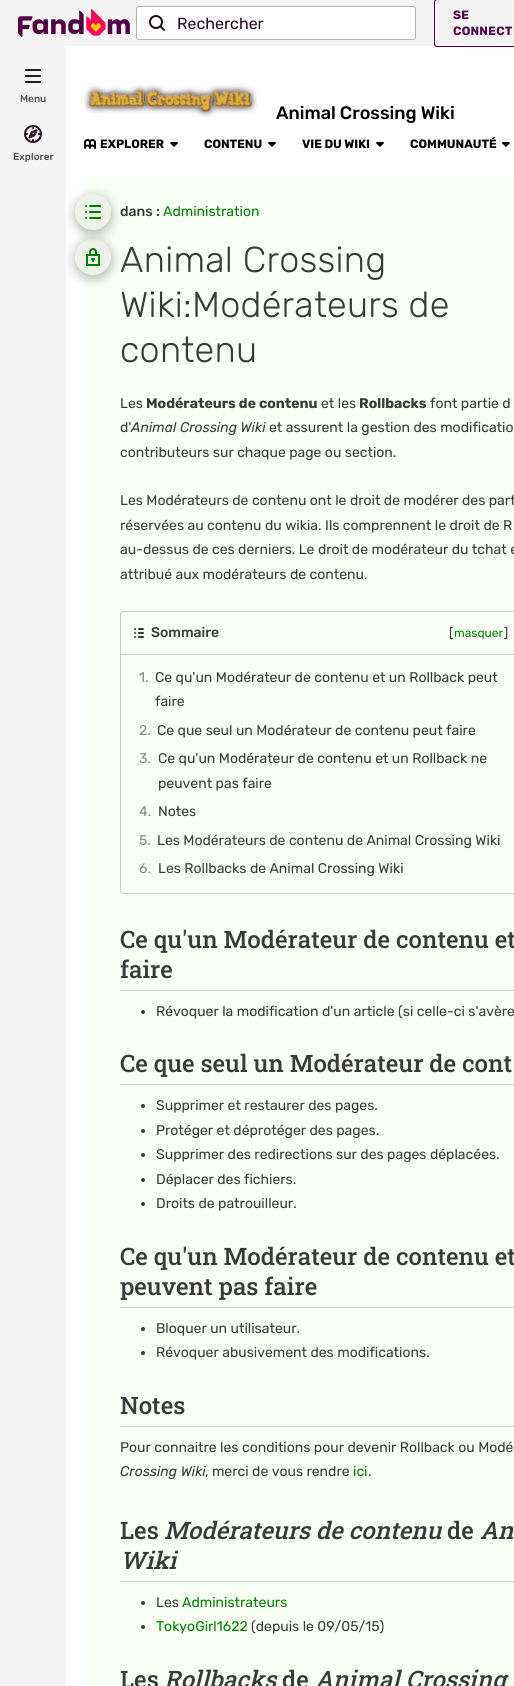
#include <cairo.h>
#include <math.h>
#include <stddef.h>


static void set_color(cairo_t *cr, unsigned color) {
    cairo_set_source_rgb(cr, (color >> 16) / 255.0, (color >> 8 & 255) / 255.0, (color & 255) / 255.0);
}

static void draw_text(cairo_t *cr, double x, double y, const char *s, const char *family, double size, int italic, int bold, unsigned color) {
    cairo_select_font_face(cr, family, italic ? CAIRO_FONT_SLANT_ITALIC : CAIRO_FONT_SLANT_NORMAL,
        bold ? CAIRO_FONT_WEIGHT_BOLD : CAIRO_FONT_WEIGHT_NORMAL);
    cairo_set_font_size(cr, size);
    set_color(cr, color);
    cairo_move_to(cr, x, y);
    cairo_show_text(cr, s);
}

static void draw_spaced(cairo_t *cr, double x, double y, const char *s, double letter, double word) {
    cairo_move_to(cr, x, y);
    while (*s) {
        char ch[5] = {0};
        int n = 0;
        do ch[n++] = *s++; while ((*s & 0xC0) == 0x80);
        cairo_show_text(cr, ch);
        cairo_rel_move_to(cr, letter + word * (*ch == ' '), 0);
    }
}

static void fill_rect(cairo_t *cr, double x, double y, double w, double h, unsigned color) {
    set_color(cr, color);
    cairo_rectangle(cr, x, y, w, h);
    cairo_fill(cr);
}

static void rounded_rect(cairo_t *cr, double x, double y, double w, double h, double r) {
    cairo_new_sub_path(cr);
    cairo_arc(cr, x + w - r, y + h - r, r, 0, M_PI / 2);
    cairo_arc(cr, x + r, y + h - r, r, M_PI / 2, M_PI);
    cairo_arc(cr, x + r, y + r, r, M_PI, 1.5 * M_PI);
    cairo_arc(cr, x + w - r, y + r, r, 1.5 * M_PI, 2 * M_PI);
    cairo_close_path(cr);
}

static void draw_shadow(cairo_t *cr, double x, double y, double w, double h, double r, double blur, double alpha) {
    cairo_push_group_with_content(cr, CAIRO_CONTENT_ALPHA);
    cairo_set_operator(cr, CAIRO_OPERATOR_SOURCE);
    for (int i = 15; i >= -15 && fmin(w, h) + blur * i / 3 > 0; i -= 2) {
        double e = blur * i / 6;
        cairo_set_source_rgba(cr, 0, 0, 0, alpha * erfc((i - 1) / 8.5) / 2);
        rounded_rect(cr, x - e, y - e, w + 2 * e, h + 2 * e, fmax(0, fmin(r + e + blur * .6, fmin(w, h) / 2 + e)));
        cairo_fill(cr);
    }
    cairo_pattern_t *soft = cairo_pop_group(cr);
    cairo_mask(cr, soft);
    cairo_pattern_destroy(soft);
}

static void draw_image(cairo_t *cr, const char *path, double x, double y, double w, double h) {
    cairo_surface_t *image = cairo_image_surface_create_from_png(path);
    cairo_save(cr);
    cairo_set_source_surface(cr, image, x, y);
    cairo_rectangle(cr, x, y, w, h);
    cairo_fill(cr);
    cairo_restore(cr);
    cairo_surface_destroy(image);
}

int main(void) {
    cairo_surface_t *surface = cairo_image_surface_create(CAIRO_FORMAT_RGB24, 514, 1686);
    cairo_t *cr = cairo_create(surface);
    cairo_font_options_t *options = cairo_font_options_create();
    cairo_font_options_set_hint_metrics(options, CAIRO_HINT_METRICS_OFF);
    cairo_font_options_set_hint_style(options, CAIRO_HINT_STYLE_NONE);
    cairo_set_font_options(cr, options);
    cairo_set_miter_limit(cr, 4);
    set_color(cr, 0xFFFFFF);
    cairo_paint(cr);
    fill_rect(cr, 0, 0, 514, 46, 0xF4F4F4);
    draw_image(cr, "assets/img1.png", 18, 9, 112, 28);
    set_color(cr, 0xFFFFFF);
    rounded_rect(cr, 136.5, 6.5, 279, 33, 2.5);
    cairo_fill_preserve(cr);
    set_color(cr, 0xB3B3B3);
    cairo_set_line_width(cr, 1);
    cairo_stroke(cr);
    draw_image(cr, "assets/img2.png", 149, 15, 16, 16);
    draw_text(cr, 177, 29, "Rechercher", "Rubik", 16, 0, 0, 0x1E0C1B);
    rounded_rect(cr, 434.5, -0.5, 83, 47, 2.5);
    set_color(cr, 0x520044);
    cairo_stroke(cr);
    cairo_select_font_face(cr, "Rubik", CAIRO_FONT_SLANT_NORMAL, CAIRO_FONT_WEIGHT_BOLD);
    cairo_set_font_size(cr, 12);
    draw_spaced(cr, 453, 19, "SE", 0.25, 0);
    draw_spaced(cr, 453, 35, "CONNECT", 0.25, 0);
    set_color(cr, 0xF9FFF5);
    cairo_new_path(cr);
    cairo_move_to(cr, 87, 176);
    cairo_line_to(cr, 514, 176);
    cairo_curve_to(cr, 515.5, 176, 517, 177.5, 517, 179);
    cairo_line_to(cr, 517, 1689);
    cairo_line_to(cr, 84, 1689);
    cairo_line_to(cr, 84, 179);
    cairo_curve_to(cr, 84, 177.5, 85.5, 176, 87, 176);
    cairo_close_path(cr);
    cairo_fill(cr);
    set_color(cr, 0x000000);
    draw_shadow(cr, 75, 242, 36, 36, 18, 6, 0.3);
    set_color(cr, 0xEDF2E9);
    cairo_arc(cr, 93, 257, 18, 0, 2 * M_PI);
    cairo_fill(cr);
    draw_image(cr, "assets/img9.png", 86, 248, 14, 18);
    set_color(cr, 0x000000);
    draw_shadow(cr, 75, 197, 36, 36, 18, 6, 0.3);
    fill_rect(cr, 0, 46, 66, 1640, 0xF4F4F4);
    draw_image(cr, "assets/img3.png", 25, 69, 16, 14);
    draw_text(cr, 20, 102, "Menu", "Rubik Medium", 10, 0, 0, 0x595358);
    draw_image(cr, "assets/img4.png", 24, 125, 18, 18);
    draw_text(cr, 13, 160, "Explorer", "Rubik Medium", 10, 0, 0, 0x595358);
    draw_image(cr, "assets/img5.png", 84, 84, 174, 34);
    draw_text(cr, 276, 119, "Animal Crossing Wiki", "Rubik Medium", 18, 0, 0, 0x000000);
    draw_image(cr, "assets/img6.png", 84, 139, 12, 10);
    draw_text(cr, 100, 148, "EXPLORER", "Rubik", 12, 0, 1, 0x000000);
    draw_image(cr, "assets/img7.png", 170, 142, 8, 5);
    draw_text(cr, 204, 148, "CONTENU", "Rubik", 12, 0, 1, 0x000000);
    draw_image(cr, "assets/img7.png", 268, 142, 8, 5);
    draw_text(cr, 302, 148, "VIE DU WIKI", "Rubik", 12, 0, 1, 0x000000);
    draw_image(cr, "assets/img7.png", 376, 142, 8, 5);
    draw_text(cr, 410, 148, "COMMUNAUTÉ", "Rubik", 12, 0, 1, 0x000000);
    draw_image(cr, "assets/img7.png", 502, 142, 8, 5);
    set_color(cr, 0xEDF2E9);
    cairo_arc(cr, 93, 212, 18, 0, 2 * M_PI);
    cairo_fill(cr);
    draw_image(cr, "assets/img8.png", 85, 205, 16, 14);
    draw_text(cr, 120, 216, "dans :", "Rubik Medium", 14, 0, 0, 0x3A3A3A);
    draw_text(cr, 163, 216, "Administration", "Rubik", 14, 0, 0, 0x008000);
    cairo_select_font_face(cr, "Rubik Light", CAIRO_FONT_SLANT_NORMAL, CAIRO_FONT_WEIGHT_NORMAL);
    cairo_set_font_size(cr, 36);
    set_color(cr, 0x3A3A3A);
    draw_spaced(cr, 120, 272, "Animal Crossing", 0.25, 0);
    draw_spaced(cr, 120, 317, "Wiki:Modérateurs de", 0.25, 0);
    draw_spaced(cr, 120, 362, "contenu", 0.25, 0);
    draw_text(cr, 120, 408, "Les", "Rubik", 14, 0, 0, 0x3A3A3A);
    draw_text(cr, 146, 408, "Modérateurs de contenu", "Rubik", 14, 0, 1, 0x3A3A3A);
    draw_text(cr, 321, 408, "et les", "Rubik", 14, 0, 0, 0x3A3A3A);
    draw_text(cr, 359, 408, "Rollbacks", "Rubik", 14, 0, 1, 0x3A3A3A);
    draw_text(cr, 430, 408, "font partie d", "Rubik", 14, 0, 0, 0x3A3A3A);
    draw_text(cr, 120, 432, "d'", "Rubik", 14, 0, 0, 0x3A3A3A);
    draw_text(cr, 131, 432, "Animal Crossing Wiki", "Rubik", 14, 1, 0, 0x3A3A3A);
    draw_text(cr, 269, 432, "et assurent la gestion des modificatio", "Rubik", 14, 0, 0, 0x3A3A3A);
    draw_text(cr, 120, 457, "contributeurs sur chaque page ou section.", "Rubik", 14, 0, 0, 0x3A3A3A);
    draw_text(cr, 120, 505, "Les Modérateurs de contenu ont le droit de modérer des part", "Rubik", 14, 0, 0, 0x3A3A3A);
    draw_text(cr, 120, 530, "réservées au contenu du wikia. Ils comprennent le droit de R", "Rubik", 14, 0, 0, 0x3A3A3A);
    draw_text(cr, 120, 554, "au-dessus de ces derniers. Le droit de modérateur du tchat e", "Rubik", 14, 0, 0, 0x3A3A3A);
    draw_text(cr, 120, 579, "attribué aux modérateurs de contenu.", "Rubik", 14, 0, 0, 0x3A3A3A);
    rounded_rect(cr, 120.5, 611.5, 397, 282, 2.5);
    set_color(cr, 0xC9CEC6);
    cairo_stroke(cr);
    fill_rect(cr, 121, 654, 393, 1, 0xC9CEC6);
    draw_image(cr, "assets/img10.png", 134, 628, 10, 10);
    draw_text(cr, 151, 637, "Sommaire", "Rubik Medium", 14, 0, 0, 0x3A3A3A);
    draw_text(cr, 449, 637, "[", "Rubik", 13, 0, 0, 0x3A3A3A);
    draw_text(cr, 454, 637, "masquer", "Rubik", 12, 0, 0, 0x008000);
    draw_text(cr, 504, 637, "]", "Rubik", 13, 0, 0, 0x3A3A3A);
    draw_text(cr, 139, 682, "1.", "Rubik", 14, 0, 0, 0x868985);
    draw_text(cr, 155, 682, "Ce qu'un Modérateur de contenu et un Rollback peut", "Rubik", 14, 0, 0, 0x3A3A3A);
    draw_text(cr, 155, 706, "faire", "Rubik", 14, 0, 0, 0x3A3A3A);
    draw_text(cr, 139, 735, "2.", "Rubik", 14, 0, 0, 0x868985);
    draw_text(cr, 157, 735, "Ce que seul un Modérateur de contenu peut faire", "Rubik", 14, 0, 0, 0x3A3A3A);
    draw_text(cr, 139, 763, "3.", "Rubik", 14, 0, 0, 0x868985);
    draw_text(cr, 158, 763, "Ce qu'un Modérateur de contenu et un Rollback ne", "Rubik", 14, 0, 0, 0x3A3A3A);
    draw_text(cr, 158, 788, "peuvent pas faire", "Rubik", 14, 0, 0, 0x3A3A3A);
    draw_text(cr, 139, 816, "4.", "Rubik", 14, 0, 0, 0x868985);
    draw_text(cr, 158, 816, "Notes", "Rubik", 14, 0, 0, 0x3A3A3A);
    draw_text(cr, 139, 845, "5.", "Rubik", 14, 0, 0, 0x868985);
    draw_text(cr, 157, 845, "Les Modérateurs de contenu de Animal Crossing Wiki", "Rubik", 14, 0, 0, 0x3A3A3A);
    draw_text(cr, 139, 873, "6.", "Rubik", 14, 0, 0, 0x868985);
    draw_text(cr, 158, 873, "Les Rollbacks de Animal Crossing Wiki", "Rubik", 14, 0, 0, 0x3A3A3A);
    fill_rect(cr, 120, 990, 394, 1, 0xC9CEC6);
    draw_text(cr, 120, 948, "Ce qu'un Modérateur de contenu et", "Roboto Slab Medium", 24, 0, 0, 0x3A3A3A);
    draw_text(cr, 120, 978, "faire", "Roboto Slab Medium", 24, 0, 0, 0x3A3A3A);
    cairo_new_path(cr);
    cairo_arc(cr, 143, 1012, 2, 0, 2 * M_PI);
    cairo_fill(cr);
    draw_text(cr, 156, 1016, "Révoquer la modification d'un article (si celle-ci s'avère", "Rubik", 14, 0, 0, 0x3A3A3A);
    fill_rect(cr, 120, 1084, 394, 1, 0xC9CEC6);
    draw_text(cr, 120, 1072, "Ce que seul un Modérateur de cont", "Roboto Slab Medium", 24, 0, 0, 0x3A3A3A);
    cairo_new_path(cr);
    cairo_arc(cr, 143, 1106, 2, 0, 2 * M_PI);
    cairo_fill(cr);
    draw_text(cr, 156, 1110, "Supprimer et restaurer des pages.", "Rubik", 14, 0, 0, 0x3A3A3A);
    cairo_new_path(cr);
    cairo_arc(cr, 143, 1131, 2, 0, 2 * M_PI);
    cairo_fill(cr);
    draw_text(cr, 156, 1135, "Protéger et déprotéger des pages.", "Rubik", 14, 0, 0, 0x3A3A3A);
    cairo_new_path(cr);
    cairo_arc(cr, 143, 1155, 2, 0, 2 * M_PI);
    cairo_fill(cr);
    draw_text(cr, 156, 1159, "Supprimer des redirections sur des pages déplacées.", "Rubik", 14, 0, 0, 0x3A3A3A);
    cairo_new_path(cr);
    cairo_arc(cr, 143, 1180, 2, 0, 2 * M_PI);
    cairo_fill(cr);
    draw_text(cr, 156, 1184, "Déplacer des fichiers.", "Rubik", 14, 0, 0, 0x3A3A3A);
    cairo_new_path(cr);
    cairo_arc(cr, 143, 1204, 2, 0, 2 * M_PI);
    cairo_fill(cr);
    draw_text(cr, 156, 1208, "Droits de patrouilleur.", "Rubik", 14, 0, 0, 0x3A3A3A);
    fill_rect(cr, 120, 1307, 394, 1, 0xC9CEC6);
    draw_text(cr, 120, 1265, "Ce qu'un Modérateur de contenu et", "Roboto Slab Medium", 24, 0, 0, 0x3A3A3A);
    draw_text(cr, 120, 1295, "peuvent pas faire", "Roboto Slab Medium", 24, 0, 0, 0x3A3A3A);
    cairo_new_path(cr);
    cairo_arc(cr, 143, 1329, 2, 0, 2 * M_PI);
    cairo_fill(cr);
    draw_text(cr, 156, 1333, "Bloquer un utilisateur.", "Rubik", 14, 0, 0, 0x3A3A3A);
    cairo_new_path(cr);
    cairo_arc(cr, 143, 1353, 2, 0, 2 * M_PI);
    cairo_fill(cr);
    draw_text(cr, 156, 1357, "Révoquer abusivement des modifications.", "Rubik", 14, 0, 0, 0x3A3A3A);
    fill_rect(cr, 120, 1426, 394, 1, 0xC9CEC6);
    draw_text(cr, 120, 1414, "Notes", "Roboto Slab Medium", 24, 0, 0, 0x3A3A3A);
    draw_text(cr, 120, 1452, "Pour connaitre les conditions pour devenir Rollback ou Modé", "Rubik", 14, 0, 0, 0x3A3A3A);
    draw_text(cr, 120, 1476, "Crossing Wiki", "Rubik", 14, 1, 0, 0x3A3A3A);
    draw_text(cr, 205, 1476, ", merci de vous rendre", "Rubik", 14, 0, 0, 0x3A3A3A);
    draw_text(cr, 353, 1476, "ici", "Rubik", 14, 0, 0, 0x008000);
    draw_text(cr, 368, 1476, ".", "Rubik", 14, 0, 0, 0x3A3A3A);
    fill_rect(cr, 120, 1581, 394, 1, 0xC9CEC6);
    draw_text(cr, 120, 1539, "Les", "Roboto Slab Medium", 24, 0, 0, 0x3A3A3A);
    draw_text(cr, 164, 1539, "Modérateurs de contenu", "Roboto Slab Medium", 24, 1, 0, 0x3A3A3A);
    draw_text(cr, 447, 1539, "de", "Roboto Slab Medium", 24, 0, 0, 0x3A3A3A);
    draw_text(cr, 480, 1539, "An", "Roboto Slab Medium", 24, 1, 0, 0x3A3A3A);
    draw_text(cr, 120, 1569, "Wiki", "Roboto Slab Medium", 24, 1, 0, 0x3A3A3A);
    cairo_new_path(cr);
    cairo_arc(cr, 143, 1603, 2, 0, 2 * M_PI);
    cairo_fill(cr);
    draw_text(cr, 156, 1607, "Les", "Rubik", 14, 0, 0, 0x3A3A3A);
    draw_text(cr, 182, 1607, "Administrateurs", "Rubik", 14, 0, 0, 0x008000);
    set_color(cr, 0x3A3A3A);
    cairo_new_path(cr);
    cairo_arc(cr, 143, 1627, 2, 0, 2 * M_PI);
    cairo_fill(cr);
    draw_text(cr, 156, 1631, "TokyoGirl1622", "Rubik", 14, 0, 0, 0x008000);
    draw_text(cr, 251, 1631, "(depuis le 09/05/15)", "Rubik", 14, 0, 0, 0x3A3A3A);
    draw_text(cr, 120, 1688, "Les", "Roboto Slab Medium", 24, 0, 0, 0x3A3A3A);
    draw_text(cr, 164, 1688, "Rollbacks", "Roboto Slab Medium", 24, 1, 0, 0x3A3A3A);
    draw_text(cr, 282, 1688, "de", "Roboto Slab Medium", 24, 0, 0, 0x3A3A3A);
    draw_text(cr, 315, 1688, "Animal Crossing", "Roboto Slab Medium", 24, 1, 0, 0x3A3A3A);
    cairo_surface_write_to_png(surface, "output.png");
    cairo_font_options_destroy(options);
    cairo_destroy(cr);
    cairo_surface_destroy(surface);
    return 0;
}
